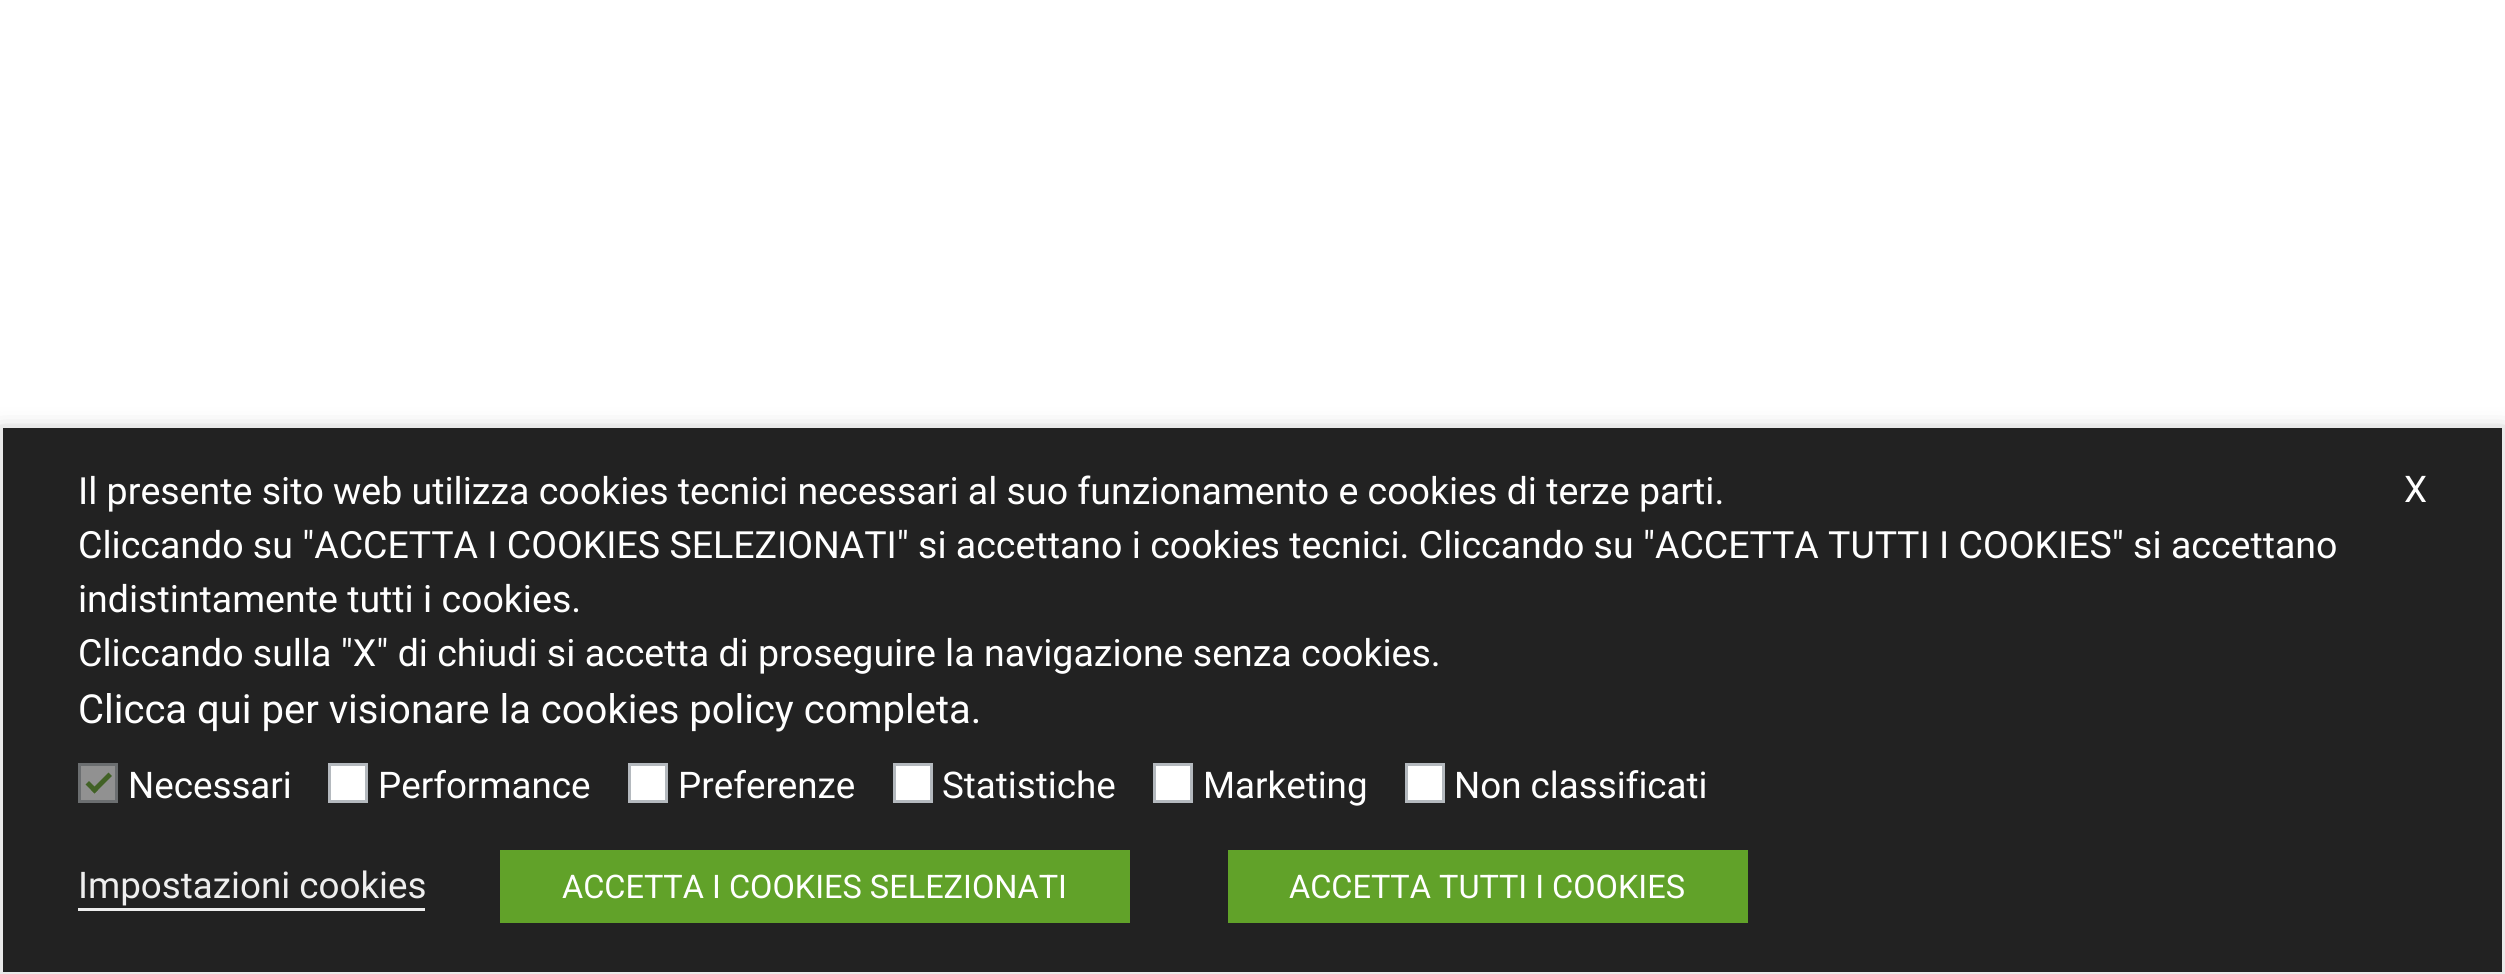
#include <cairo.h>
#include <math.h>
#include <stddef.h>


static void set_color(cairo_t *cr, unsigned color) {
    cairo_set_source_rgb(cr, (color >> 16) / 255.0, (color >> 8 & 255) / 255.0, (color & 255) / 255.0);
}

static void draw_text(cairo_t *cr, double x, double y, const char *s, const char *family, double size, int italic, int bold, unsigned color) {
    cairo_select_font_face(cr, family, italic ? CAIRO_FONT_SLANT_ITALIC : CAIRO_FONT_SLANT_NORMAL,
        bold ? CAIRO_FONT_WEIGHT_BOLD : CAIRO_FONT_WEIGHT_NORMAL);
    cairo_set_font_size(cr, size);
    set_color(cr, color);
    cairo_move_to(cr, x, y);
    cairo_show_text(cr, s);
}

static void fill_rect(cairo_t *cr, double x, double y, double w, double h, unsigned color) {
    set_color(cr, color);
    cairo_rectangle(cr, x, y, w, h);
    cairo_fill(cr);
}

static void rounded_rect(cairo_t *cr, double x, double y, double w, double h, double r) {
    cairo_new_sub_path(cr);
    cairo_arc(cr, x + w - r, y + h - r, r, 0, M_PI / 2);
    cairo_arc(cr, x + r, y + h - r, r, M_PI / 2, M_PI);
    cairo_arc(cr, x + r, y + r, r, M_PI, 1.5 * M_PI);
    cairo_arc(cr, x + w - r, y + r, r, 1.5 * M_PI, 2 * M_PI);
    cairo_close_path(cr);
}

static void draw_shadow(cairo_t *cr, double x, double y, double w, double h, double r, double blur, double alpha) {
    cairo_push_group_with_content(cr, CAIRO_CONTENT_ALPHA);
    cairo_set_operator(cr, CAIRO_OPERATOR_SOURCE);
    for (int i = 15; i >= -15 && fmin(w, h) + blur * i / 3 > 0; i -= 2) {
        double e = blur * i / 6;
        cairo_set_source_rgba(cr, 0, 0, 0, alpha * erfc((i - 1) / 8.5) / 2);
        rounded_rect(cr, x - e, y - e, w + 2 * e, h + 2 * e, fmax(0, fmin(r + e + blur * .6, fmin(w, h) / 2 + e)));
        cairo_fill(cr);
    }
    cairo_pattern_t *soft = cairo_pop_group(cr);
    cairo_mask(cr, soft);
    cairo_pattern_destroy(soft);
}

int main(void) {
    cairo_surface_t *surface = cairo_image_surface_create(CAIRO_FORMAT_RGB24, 2505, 974);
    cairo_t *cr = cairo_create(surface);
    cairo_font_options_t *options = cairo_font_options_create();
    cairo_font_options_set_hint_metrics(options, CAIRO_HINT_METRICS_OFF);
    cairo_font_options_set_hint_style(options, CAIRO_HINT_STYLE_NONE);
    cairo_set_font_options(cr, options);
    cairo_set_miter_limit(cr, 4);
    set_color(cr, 0xFFFFFF);
    cairo_paint(cr);
    set_color(cr, 0x000000);
    draw_shadow(cr, 0, 438, 2505, 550, 0, 12.5, 0.5);
    set_color(cr, 0x222222);
    cairo_rectangle(cr, 1.5, 426.5, 2502, 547);
    cairo_fill_preserve(cr);
    set_color(cr, 0xE9E9E9);
    cairo_set_line_width(cr, 3);
    cairo_stroke(cr);
    draw_text(cr, 78, 504, "Il presente sito web utilizza cookies tecnici necessari al suo funzionamento e cookies di terze parti.", "Roboto", 37.5, 0, 0, 0xFFFFFF);
    draw_text(cr, 78, 558, "Cliccando su \"ACCETTA I COOKIES SELEZIONATI\" si accettano i cookies tecnici. Cliccando su \"ACCETTA TUTTI I COOKIES\" si accettano", "Roboto", 37.5, 0, 0, 0xFFFFFF);
    draw_text(cr, 78, 612, "indistintamente tutti i cookies.", "Roboto", 37.5, 0, 0, 0xFFFFFF);
    draw_text(cr, 78, 666, "Cliccando sulla \"X\" di chiudi si accetta di proseguire la navigazione senza cookies.", "Roboto", 37.5, 0, 0, 0xFFFFFF);
    draw_text(cr, 78, 723, "Clicca qui per visionare la cookies policy completa.", "Roboto", 40, 0, 0, 0xFFFFFF);
    set_color(cr, 0x919191);
    cairo_rectangle(cr, 79.5, 764.5, 37, 37);
    cairo_fill_preserve(cr);
    set_color(cr, 0x6B6E70);
    cairo_stroke(cr);
    set_color(cr, 0x426226);
    cairo_new_path(cr);
    cairo_move_to(cr, 108.5, 772.5);
    cairo_line_to(cr, 112, 776);
    cairo_line_to(cr, 94.5, 793.5);
    cairo_line_to(cr, 91, 790);
    cairo_close_path(cr);
    cairo_fill(cr);
    cairo_new_path(cr);
    cairo_move_to(cr, 89, 781);
    cairo_line_to(cr, 98, 790);
    cairo_line_to(cr, 94.5, 793.5);
    cairo_line_to(cr, 85.5, 784.5);
    cairo_close_path(cr);
    cairo_fill(cr);
    draw_text(cr, 128, 798, "Necessari", "Roboto", 36.75, 0, 0, 0xFFFFFF);
    cairo_rectangle(cr, 329.5, 764.5, 37, 37);
    cairo_fill_preserve(cr);
    set_color(cr, 0xB4B9BE);
    cairo_stroke(cr);
    draw_text(cr, 378, 798, "Performance", "Roboto", 36.75, 0, 0, 0xFFFFFF);
    cairo_rectangle(cr, 629.5, 764.5, 37, 37);
    cairo_fill_preserve(cr);
    set_color(cr, 0xB4B9BE);
    cairo_stroke(cr);
    draw_text(cr, 678, 798, "Preferenze", "Roboto", 36.75, 0, 0, 0xFFFFFF);
    cairo_rectangle(cr, 894.5, 764.5, 37, 37);
    cairo_fill_preserve(cr);
    set_color(cr, 0xB4B9BE);
    cairo_stroke(cr);
    draw_text(cr, 942, 798, "Statistiche", "Roboto", 36.75, 0, 0, 0xFFFFFF);
    cairo_rectangle(cr, 1154.5, 764.5, 37, 37);
    cairo_fill_preserve(cr);
    set_color(cr, 0xB4B9BE);
    cairo_stroke(cr);
    draw_text(cr, 1203, 798, "Marketing", "Roboto", 36.75, 0, 0, 0xFFFFFF);
    cairo_rectangle(cr, 1406.5, 764.5, 37, 37);
    cairo_fill_preserve(cr);
    set_color(cr, 0xB4B9BE);
    cairo_stroke(cr);
    draw_text(cr, 1454, 798, "Non classificati", "Roboto", 36.75, 0, 0, 0xFFFFFF);
    draw_text(cr, 78, 898, "Impostazioni cookies", "Roboto", 36.75, 0, 0, 0xEEEEEE);
    fill_rect(cr, 78, 908, 347, 3, 0xEEEEEE);
    fill_rect(cr, 500, 850, 630, 73, 0x61A229);
    draw_text(cr, 562, 898, "ACCETTA I COOKIES SELEZIONATI", "Roboto", 32.5, 0, 0, 0xFFFFFF);
    fill_rect(cr, 1228, 850, 520, 73, 0x61A229);
    draw_text(cr, 1289, 898, "ACCETTA TUTTI I COOKIES", "Roboto", 32.5, 0, 0, 0xFFFFFF);
    draw_text(cr, 2404, 502, "X", "Roboto", 36.75, 0, 0, 0xFFFFFF);
    cairo_surface_write_to_png(surface, "output.png");
    cairo_font_options_destroy(options);
    cairo_destroy(cr);
    cairo_surface_destroy(surface);
    return 0;
}
